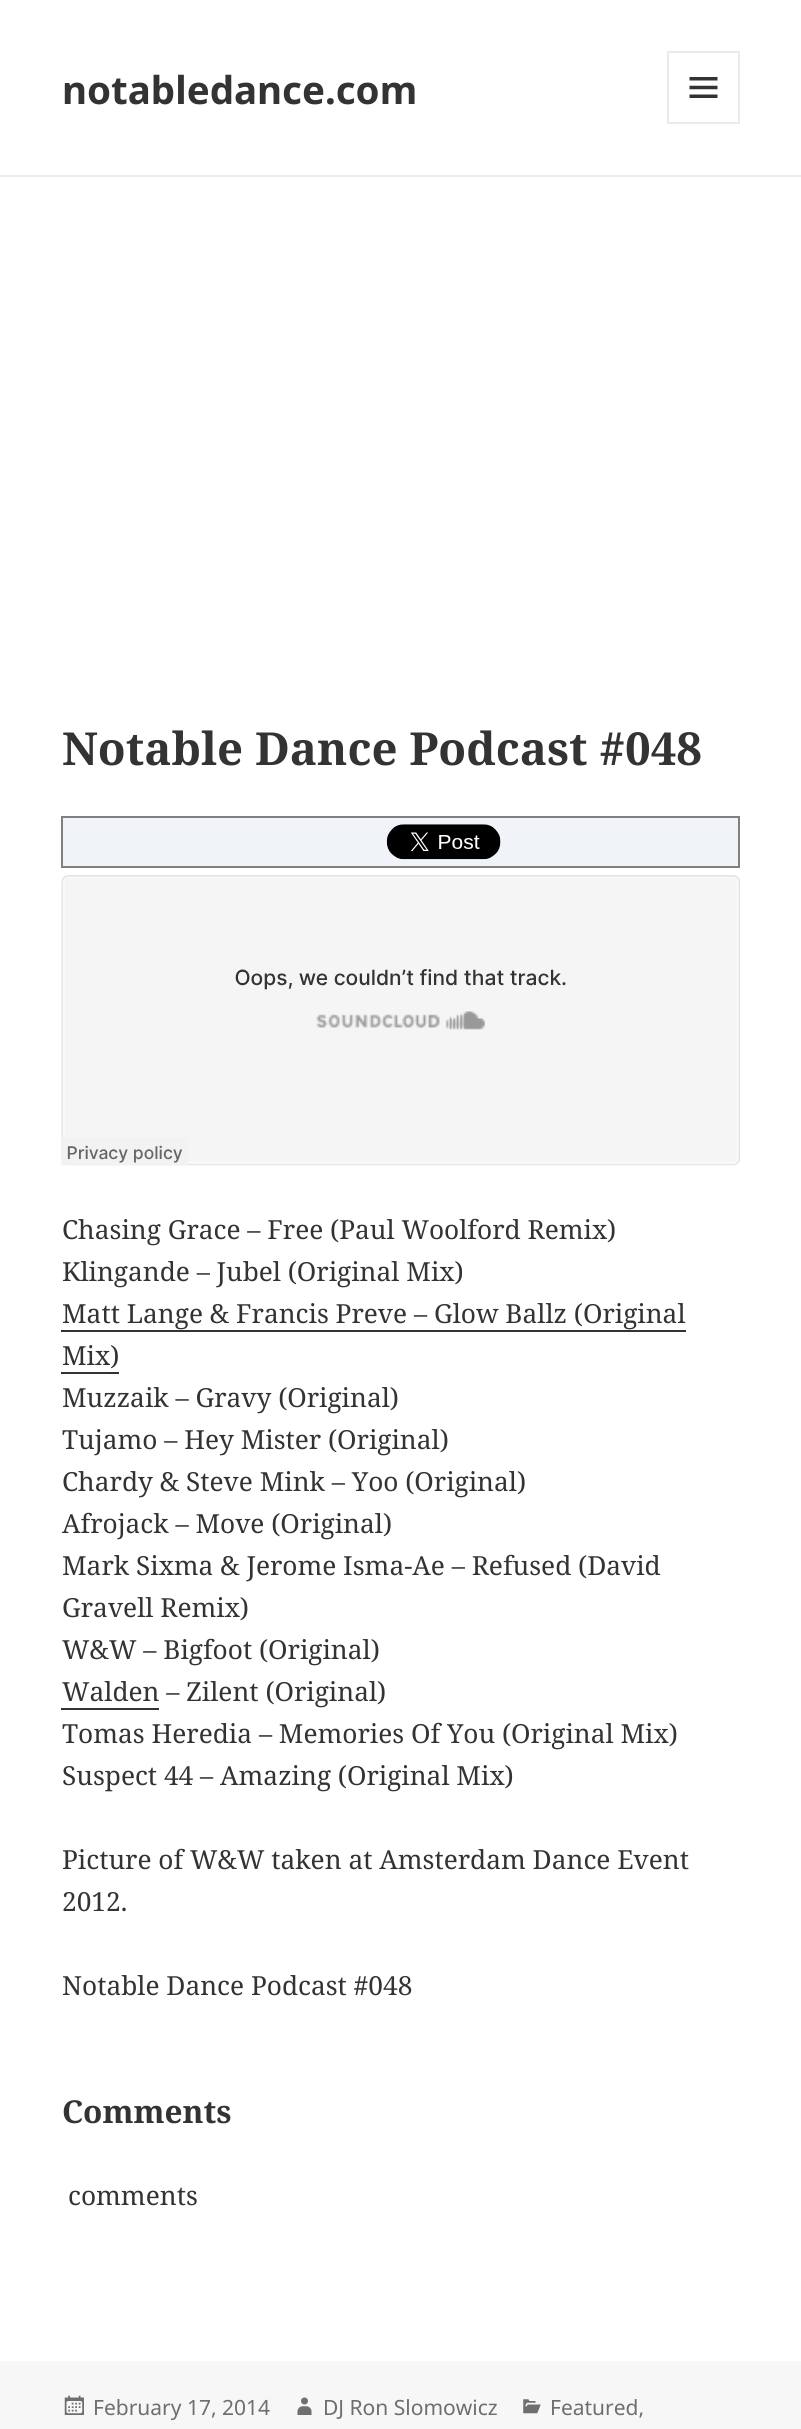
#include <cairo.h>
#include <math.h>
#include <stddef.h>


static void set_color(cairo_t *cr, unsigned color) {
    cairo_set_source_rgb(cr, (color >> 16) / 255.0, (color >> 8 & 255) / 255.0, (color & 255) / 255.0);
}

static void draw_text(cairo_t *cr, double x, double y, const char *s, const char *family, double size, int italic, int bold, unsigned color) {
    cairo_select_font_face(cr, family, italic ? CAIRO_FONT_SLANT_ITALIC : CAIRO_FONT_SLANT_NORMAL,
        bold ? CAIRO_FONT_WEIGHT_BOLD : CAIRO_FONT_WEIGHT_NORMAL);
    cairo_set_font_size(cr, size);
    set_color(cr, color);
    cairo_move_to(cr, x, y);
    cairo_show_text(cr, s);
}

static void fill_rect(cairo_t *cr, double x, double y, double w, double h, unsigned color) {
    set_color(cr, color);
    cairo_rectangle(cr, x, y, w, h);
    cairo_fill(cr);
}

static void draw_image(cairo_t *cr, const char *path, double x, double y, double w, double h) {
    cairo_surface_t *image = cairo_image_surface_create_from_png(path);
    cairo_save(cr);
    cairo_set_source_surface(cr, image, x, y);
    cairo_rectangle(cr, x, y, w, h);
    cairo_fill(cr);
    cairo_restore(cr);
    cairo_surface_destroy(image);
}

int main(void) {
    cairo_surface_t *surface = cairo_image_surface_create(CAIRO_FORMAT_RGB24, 801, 2429);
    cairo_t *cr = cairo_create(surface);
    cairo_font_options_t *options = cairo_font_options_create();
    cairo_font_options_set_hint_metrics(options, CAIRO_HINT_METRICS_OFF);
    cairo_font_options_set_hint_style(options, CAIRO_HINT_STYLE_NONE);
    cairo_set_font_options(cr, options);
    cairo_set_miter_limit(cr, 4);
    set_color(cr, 0xFFFFFF);
    cairo_paint(cr);
    fill_rect(cr, 0, 175, 801, 2, 0xEBEBEB);
    draw_text(cr, 62, 104, "notabledance.com", "Noto Sans", 38.5, 0, 1, 0x333333);
    cairo_rectangle(cr, 668, 52, 71, 71);
    set_color(cr, 0xEBEBEB);
    cairo_stroke(cr);
    draw_image(cr, "assets/img1.png", 689, 77, 29, 21);
    draw_text(cr, 62, 765, "Notable Dance Podcast #048", "Noto Serif", 45.5, 0, 1, 0x333333);
    set_color(cr, 0xF0F4F9);
    cairo_rectangle(cr, 62, 817, 677, 50);
    cairo_fill_preserve(cr);
    set_color(cr, 0x808080);
    cairo_stroke(cr);
    draw_image(cr, "assets/img2.png", 386, 824, 115, 36);
    draw_image(cr, "assets/img3.png", 61, 875, 679, 291);
    draw_text(cr, 62, 1239, "Chasing Grace – Free (Paul Woolford Remix)", "Noto Serif", 26.25, 0, 0, 0x333333);
    draw_text(cr, 62, 1281, "Klingande – Jubel (Original Mix)", "Noto Serif", 26.25, 0, 0, 0x333333);
    draw_text(cr, 62, 1323, "Matt Lange & Francis Preve – Glow Ballz (Original", "Noto Serif", 26.25, 0, 0, 0x333333);
    fill_rect(cr, 61, 1330, 625, 2, 0x333333);
    draw_text(cr, 62, 1365, "Mix)", "Noto Serif", 26.25, 0, 0, 0x333333);
    fill_rect(cr, 61, 1372, 58, 2, 0x333333);
    draw_text(cr, 62, 1407, "Muzzaik – Gravy (Original)", "Noto Serif", 26.25, 0, 0, 0x333333);
    draw_text(cr, 62, 1449, "Tujamo – Hey Mister (Original)", "Noto Serif", 26.25, 0, 0, 0x333333);
    draw_text(cr, 62, 1491, "Chardy & Steve Mink – Yoo (Original)", "Noto Serif", 26.25, 0, 0, 0x333333);
    draw_text(cr, 62, 1533, "Afrojack – Move (Original)", "Noto Serif", 26.25, 0, 0, 0x333333);
    draw_text(cr, 62, 1575, "Mark Sixma & Jerome Isma-Ae – Refused (David", "Noto Serif", 26.25, 0, 0, 0x333333);
    draw_text(cr, 62, 1617, "Gravell Remix)", "Noto Serif", 26.25, 0, 0, 0x333333);
    draw_text(cr, 62, 1659, "W&W – Bigfoot (Original)", "Noto Serif", 26.25, 0, 0, 0x333333);
    draw_text(cr, 62, 1701, "Walden – Zilent (Original)", "Noto Serif", 26.25, 0, 0, 0x333333);
    fill_rect(cr, 61, 1708, 98, 2, 0x333333);
    draw_text(cr, 62, 1743, "Tomas Heredia – Memories Of You (Original Mix)", "Noto Serif", 26.25, 0, 0, 0x333333);
    draw_text(cr, 62, 1785, "Suspect 44 – Amazing (Original Mix)", "Noto Serif", 26.25, 0, 0, 0x333333);
    draw_text(cr, 62, 1869, "Picture of W&W taken at Amsterdam Dance Event", "Noto Serif", 26.25, 0, 0, 0x333333);
    draw_text(cr, 62, 1911, "2012.", "Noto Serif", 26.25, 0, 0, 0x333333);
    draw_text(cr, 62, 1995, "Notable Dance Podcast #048", "Noto Serif", 26.25, 0, 0, 0x333333);
    draw_text(cr, 62, 2123, "Comments", "Noto Serif", 31.5, 0, 1, 0x333333);
    draw_text(cr, 68, 2205, "comments", "Noto Serif", 26.25, 0, 0, 0x333333);
    fill_rect(cr, 0, 2361, 801, 68, 0xF7F7F7);
    draw_image(cr, "assets/img4.png", 64, 2395, 20, 20);
    draw_text(cr, 93, 2415, "February 17, 2014", "Noto Sans", 21, 0, 0, 0x6E6E6E);
    draw_image(cr, "assets/img5.png", 297, 2397, 15, 18);
    draw_text(cr, 323, 2415, "DJ Ron Slomowicz", "Noto Sans", 21, 0, 0, 0x6E6E6E);
    draw_image(cr, "assets/img6.png", 523, 2399, 18, 15);
    draw_text(cr, 550, 2415, "Featured,", "Noto Sans", 21, 0, 0, 0x6E6E6E);
    cairo_surface_write_to_png(surface, "output.png");
    cairo_font_options_destroy(options);
    cairo_destroy(cr);
    cairo_surface_destroy(surface);
    return 0;
}
